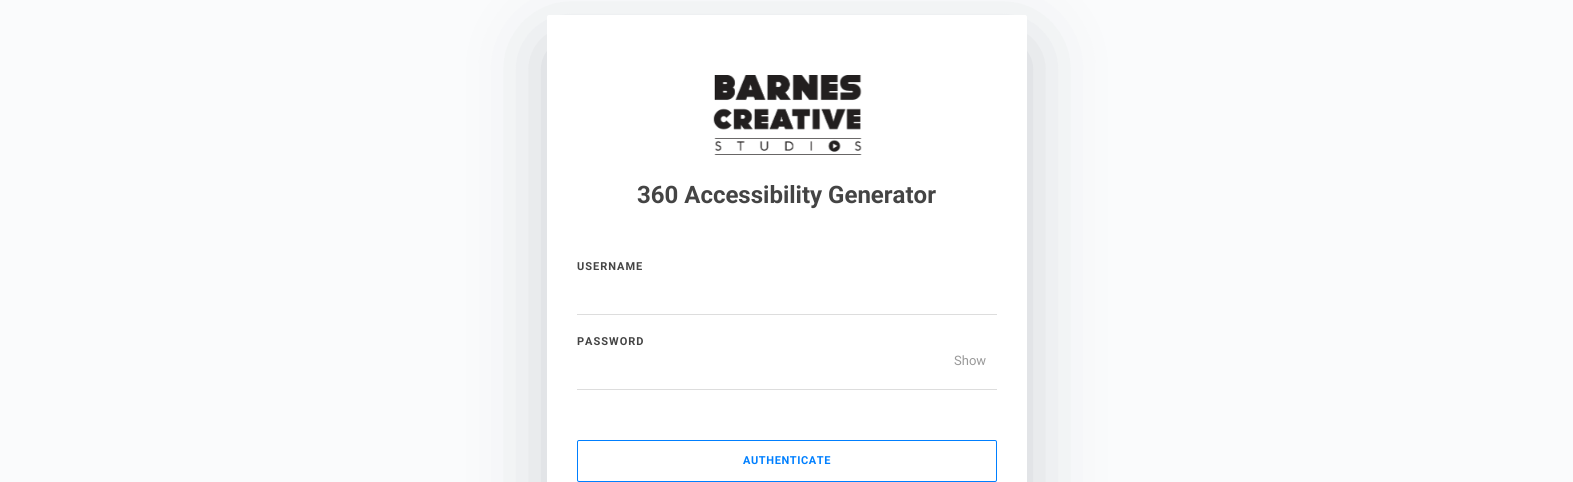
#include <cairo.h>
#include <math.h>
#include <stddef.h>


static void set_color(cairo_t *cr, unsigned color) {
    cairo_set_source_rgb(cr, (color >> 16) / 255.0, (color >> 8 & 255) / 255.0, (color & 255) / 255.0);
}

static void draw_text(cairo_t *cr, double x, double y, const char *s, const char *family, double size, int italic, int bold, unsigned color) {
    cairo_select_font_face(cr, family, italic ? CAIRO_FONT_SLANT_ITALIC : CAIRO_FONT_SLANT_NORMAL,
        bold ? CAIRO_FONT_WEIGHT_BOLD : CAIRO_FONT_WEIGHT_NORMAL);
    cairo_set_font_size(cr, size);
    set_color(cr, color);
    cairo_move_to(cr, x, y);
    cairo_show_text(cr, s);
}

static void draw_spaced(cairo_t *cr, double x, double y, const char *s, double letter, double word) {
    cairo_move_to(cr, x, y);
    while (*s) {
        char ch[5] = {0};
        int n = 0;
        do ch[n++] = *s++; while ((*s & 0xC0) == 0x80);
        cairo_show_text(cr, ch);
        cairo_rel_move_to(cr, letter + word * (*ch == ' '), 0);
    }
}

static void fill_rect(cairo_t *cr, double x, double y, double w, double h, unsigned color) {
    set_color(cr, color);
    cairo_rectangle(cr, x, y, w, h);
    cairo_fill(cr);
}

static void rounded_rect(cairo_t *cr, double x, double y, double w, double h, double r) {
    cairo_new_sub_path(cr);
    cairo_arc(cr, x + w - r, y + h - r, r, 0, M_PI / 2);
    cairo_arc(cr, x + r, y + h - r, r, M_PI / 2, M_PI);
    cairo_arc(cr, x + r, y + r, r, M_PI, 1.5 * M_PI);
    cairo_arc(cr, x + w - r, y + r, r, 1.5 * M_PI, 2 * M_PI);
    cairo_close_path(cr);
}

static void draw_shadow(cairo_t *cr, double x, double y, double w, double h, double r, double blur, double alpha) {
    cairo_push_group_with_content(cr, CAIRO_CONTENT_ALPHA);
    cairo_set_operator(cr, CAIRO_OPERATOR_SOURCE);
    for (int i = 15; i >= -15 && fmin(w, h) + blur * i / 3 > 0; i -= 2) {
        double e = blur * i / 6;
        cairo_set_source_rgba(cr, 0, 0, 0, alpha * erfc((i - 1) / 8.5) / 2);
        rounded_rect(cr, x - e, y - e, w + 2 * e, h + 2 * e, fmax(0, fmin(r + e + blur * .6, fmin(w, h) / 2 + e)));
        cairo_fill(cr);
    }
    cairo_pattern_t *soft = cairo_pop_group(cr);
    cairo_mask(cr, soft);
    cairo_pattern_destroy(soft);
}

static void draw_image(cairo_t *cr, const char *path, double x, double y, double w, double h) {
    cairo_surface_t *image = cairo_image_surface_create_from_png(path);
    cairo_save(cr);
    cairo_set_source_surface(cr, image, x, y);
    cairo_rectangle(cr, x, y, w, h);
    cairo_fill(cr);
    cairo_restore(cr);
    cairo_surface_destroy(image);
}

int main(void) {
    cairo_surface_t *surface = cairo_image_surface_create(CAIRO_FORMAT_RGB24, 1573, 482);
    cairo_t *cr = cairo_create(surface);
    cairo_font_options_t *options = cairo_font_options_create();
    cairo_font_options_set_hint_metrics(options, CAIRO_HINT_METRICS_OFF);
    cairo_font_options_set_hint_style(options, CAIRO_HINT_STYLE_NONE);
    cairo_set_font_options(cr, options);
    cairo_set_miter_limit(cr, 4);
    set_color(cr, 0xFAFBFC);
    cairo_paint(cr);
    set_color(cr, 0x0A1929);
    draw_shadow(cr, 547, 45, 480, 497, 2, 37.5, 0.2);
    set_color(cr, 0xFFFFFF);
    rounded_rect(cr, 547, 15, 480, 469, 2);
    cairo_fill(cr);
    draw_image(cr, "assets/img1.png", 713, 75, 149, 80);
    draw_text(cr, 637, 203, "360 Accessibility Generator", "Roboto", 24, 0, 1, 0x444444);
    cairo_set_font_size(cr, 11);
    draw_spaced(cr, 577, 270, "USERNAME", 1, 0);
    fill_rect(cr, 577, 314, 420, 1, 0xDDDDDD);
    set_color(cr, 0x444444);
    draw_spaced(cr, 577, 345, "PASSWORD", 1, 0);
    draw_text(cr, 954, 365, "Show", "Roboto", 13, 0, 0, 0x999999);
    fill_rect(cr, 577, 389, 420, 1, 0xDDDDDD);
    rounded_rect(cr, 577.5, 440.5, 419, 41, 1.5);
    set_color(cr, 0x007FFF);
    cairo_set_line_width(cr, 1);
    cairo_stroke(cr);
    cairo_select_font_face(cr, "Roboto", CAIRO_FONT_SLANT_NORMAL, CAIRO_FONT_WEIGHT_BOLD);
    cairo_set_font_size(cr, 11);
    draw_spaced(cr, 743, 464, "AUTHENTICATE", 0.6, 0);
    cairo_surface_write_to_png(surface, "output.png");
    cairo_font_options_destroy(options);
    cairo_destroy(cr);
    cairo_surface_destroy(surface);
    return 0;
}
